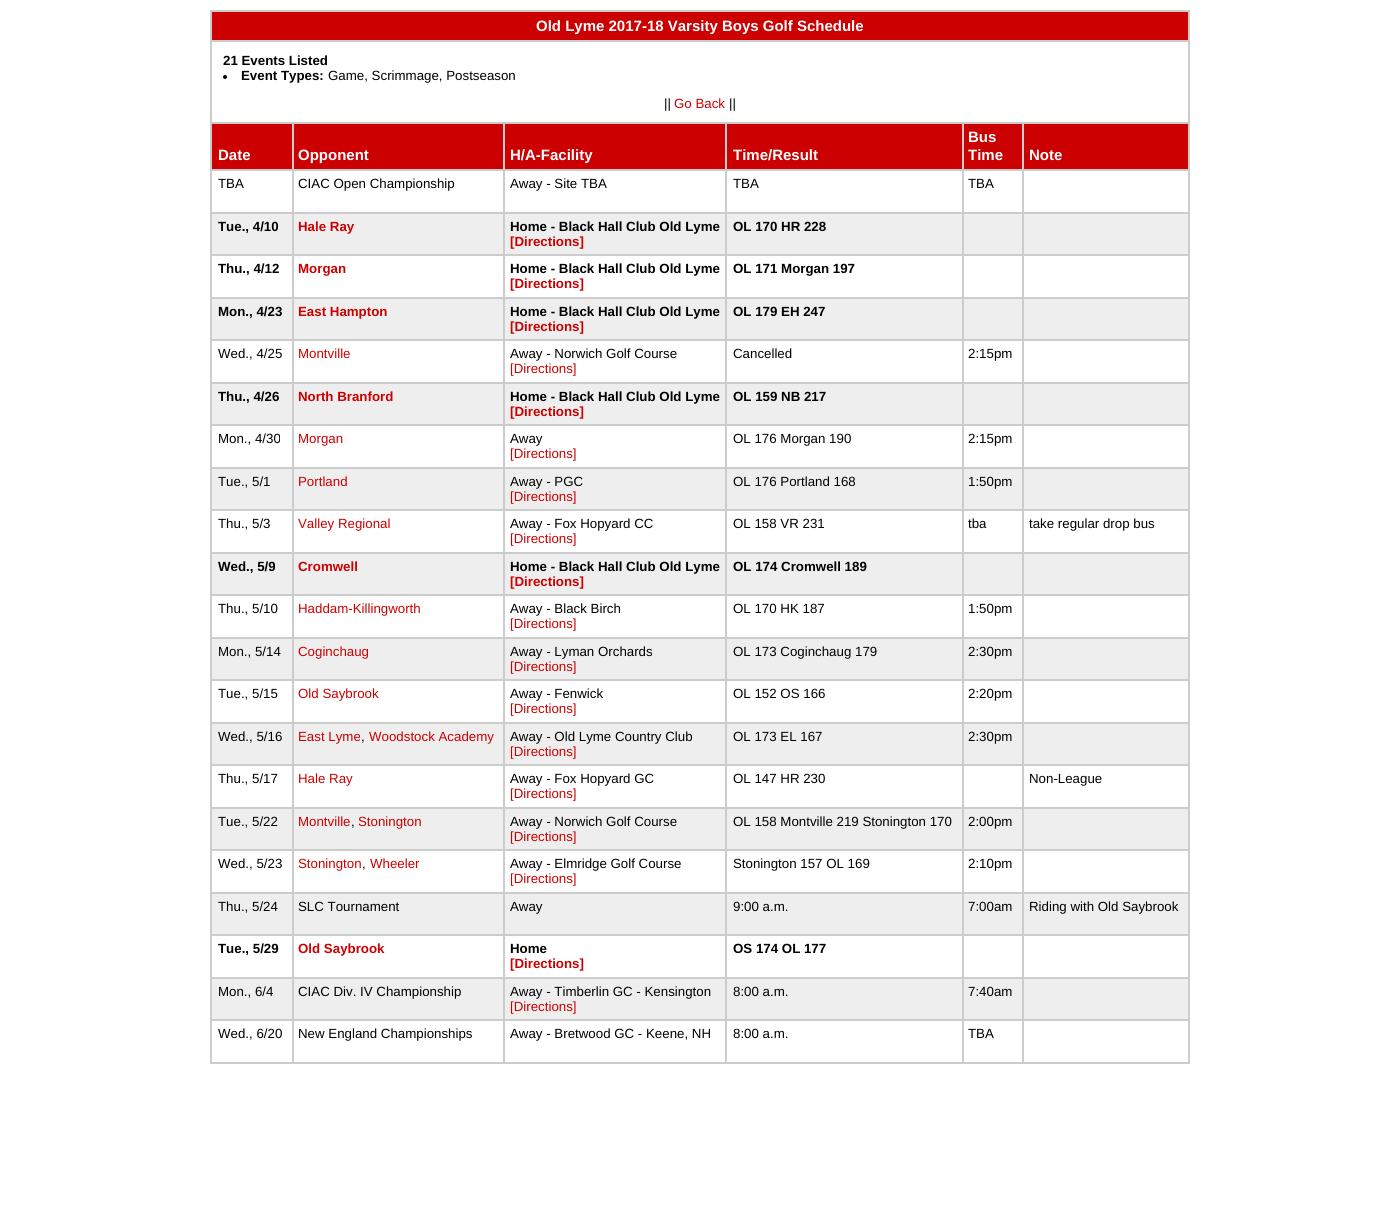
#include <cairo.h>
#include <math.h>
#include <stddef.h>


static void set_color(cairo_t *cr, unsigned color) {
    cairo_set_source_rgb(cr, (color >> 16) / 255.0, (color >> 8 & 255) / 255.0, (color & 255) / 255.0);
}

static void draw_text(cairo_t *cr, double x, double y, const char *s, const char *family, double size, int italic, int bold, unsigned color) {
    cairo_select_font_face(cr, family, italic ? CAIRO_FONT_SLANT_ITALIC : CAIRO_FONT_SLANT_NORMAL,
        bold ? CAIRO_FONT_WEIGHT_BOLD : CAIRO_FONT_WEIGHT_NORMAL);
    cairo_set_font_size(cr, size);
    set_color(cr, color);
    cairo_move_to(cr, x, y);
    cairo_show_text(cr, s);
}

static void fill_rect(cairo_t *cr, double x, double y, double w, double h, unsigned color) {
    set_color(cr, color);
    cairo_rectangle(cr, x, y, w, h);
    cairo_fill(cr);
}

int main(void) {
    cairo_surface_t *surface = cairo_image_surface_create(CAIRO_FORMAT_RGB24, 1400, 1208);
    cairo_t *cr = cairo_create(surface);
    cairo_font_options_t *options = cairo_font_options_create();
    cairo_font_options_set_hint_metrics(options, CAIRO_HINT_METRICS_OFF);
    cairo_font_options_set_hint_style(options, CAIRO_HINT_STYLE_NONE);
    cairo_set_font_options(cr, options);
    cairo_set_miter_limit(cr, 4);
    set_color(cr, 0xFFFFFF);
    cairo_paint(cr);
    fill_rect(cr, 210, 10, 980, 1054, 0xCCCCCC);
    fill_rect(cr, 212, 12, 976, 28, 0xCC0000);
    draw_text(cr, 536, 31, "Old Lyme 2017-18 Varsity Boys Golf Schedule", "Liberation Sans", 15, 0, 1, 0xFFFFFF);
    fill_rect(cr, 212, 42, 976, 80, 0xFFFFFF);
    draw_text(cr, 223, 65, "21 Events Listed", "Liberation Sans", 13.3, 0, 1, 0x000000);
    cairo_new_path(cr);
    cairo_arc(cr, 225, 77, 2, 0, 2 * M_PI);
    cairo_fill(cr);
    draw_text(cr, 241, 80, "Event Types:", "Liberation Sans", 13.3, 0, 1, 0x000000);
    draw_text(cr, 328, 80, "Game, Scrimmage, Postseason", "Liberation Sans", 13.3, 0, 0, 0x000000);
    draw_text(cr, 664, 108, "||", "Liberation Sans", 13.3, 0, 0, 0x000000);
    draw_text(cr, 674, 108, "Go Back", "Liberation Sans", 13.3, 0, 0, 0xCC0000);
    draw_text(cr, 729, 108, "||", "Liberation Sans", 13.3, 0, 0, 0x000000);
    fill_rect(cr, 212, 124, 80, 45, 0xCC0000);
    draw_text(cr, 218, 160, "Date", "Liberation Sans", 15, 0, 1, 0xFFFFFF);
    fill_rect(cr, 294, 124, 209, 45, 0xCC0000);
    draw_text(cr, 298, 160, "Opponent", "Liberation Sans", 15, 0, 1, 0xFFFFFF);
    fill_rect(cr, 505, 124, 220, 45, 0xCC0000);
    draw_text(cr, 510, 160, "H/A-Facility", "Liberation Sans", 15, 0, 1, 0xFFFFFF);
    fill_rect(cr, 727, 124, 235, 45, 0xCC0000);
    draw_text(cr, 733, 160, "Time/Result", "Liberation Sans", 15, 0, 1, 0xFFFFFF);
    fill_rect(cr, 964, 124, 58, 45, 0xCC0000);
    draw_text(cr, 968, 142, "Bus", "Liberation Sans", 15, 0, 1, 0xFFFFFF);
    draw_text(cr, 968, 160, "Time", "Liberation Sans", 15, 0, 1, 0xFFFFFF);
    fill_rect(cr, 1024, 124, 164, 45, 0xCC0000);
    draw_text(cr, 1029, 160, "Note", "Liberation Sans", 15, 0, 1, 0xFFFFFF);
    fill_rect(cr, 212, 171, 976, 41, 0xFFFFFF);
    cairo_rectangle(cr, 211.5, 170.5, 81, 42);
    set_color(cr, 0xCCCCCC);
    cairo_set_line_width(cr, 1);
    cairo_stroke(cr);
    draw_text(cr, 218, 188, "TBA", "Liberation Sans", 13.3, 0, 0, 0x000000);
    cairo_rectangle(cr, 293.5, 170.5, 210, 42);
    set_color(cr, 0xCCCCCC);
    cairo_stroke(cr);
    draw_text(cr, 298, 188, "CIAC Open Championship", "Liberation Sans", 13.3, 0, 0, 0x000000);
    cairo_rectangle(cr, 504.5, 170.5, 221, 42);
    set_color(cr, 0xCCCCCC);
    cairo_stroke(cr);
    draw_text(cr, 510, 188, "Away - Site TBA", "Liberation Sans", 13.3, 0, 0, 0x000000);
    cairo_rectangle(cr, 726.5, 170.5, 236, 42);
    set_color(cr, 0xCCCCCC);
    cairo_stroke(cr);
    draw_text(cr, 733, 188, "TBA", "Liberation Sans", 13.3, 0, 0, 0x000000);
    cairo_rectangle(cr, 963.5, 170.5, 59, 42);
    set_color(cr, 0xCCCCCC);
    cairo_stroke(cr);
    draw_text(cr, 968, 188, "TBA", "Liberation Sans", 13.3, 0, 0, 0x000000);
    cairo_rectangle(cr, 1023.5, 170.5, 165, 42);
    set_color(cr, 0xCCCCCC);
    cairo_stroke(cr);
    fill_rect(cr, 212, 214, 976, 40, 0xEEEEEE);
    cairo_rectangle(cr, 211.5, 213.5, 81, 41);
    set_color(cr, 0xCCCCCC);
    cairo_stroke(cr);
    draw_text(cr, 218, 231, "Tue., 4/10", "Liberation Sans", 13.3, 0, 1, 0x000000);
    cairo_rectangle(cr, 293.5, 213.5, 210, 41);
    set_color(cr, 0xCCCCCC);
    cairo_stroke(cr);
    draw_text(cr, 298, 231, "Hale Ray", "Liberation Sans", 13.3, 0, 1, 0xCC0000);
    cairo_rectangle(cr, 504.5, 213.5, 221, 41);
    set_color(cr, 0xCCCCCC);
    cairo_stroke(cr);
    draw_text(cr, 510, 231, "Home - Black Hall Club Old Lyme", "Liberation Sans", 13.3, 0, 1, 0x000000);
    draw_text(cr, 510, 246, "[Directions]", "Liberation Sans", 13.3, 0, 1, 0xCC0000);
    cairo_rectangle(cr, 726.5, 213.5, 236, 41);
    set_color(cr, 0xCCCCCC);
    cairo_stroke(cr);
    draw_text(cr, 733, 231, "OL 170 HR 228", "Liberation Sans", 13.3, 0, 1, 0x000000);
    cairo_rectangle(cr, 963.5, 213.5, 59, 41);
    set_color(cr, 0xCCCCCC);
    cairo_stroke(cr);
    cairo_rectangle(cr, 1023.5, 213.5, 165, 41);
    cairo_stroke(cr);
    fill_rect(cr, 212, 256, 976, 41, 0xFFFFFF);
    cairo_rectangle(cr, 211.5, 255.5, 81, 42);
    set_color(cr, 0xCCCCCC);
    cairo_stroke(cr);
    draw_text(cr, 218, 273, "Thu., 4/12", "Liberation Sans", 13.3, 0, 1, 0x000000);
    cairo_rectangle(cr, 293.5, 255.5, 210, 42);
    set_color(cr, 0xCCCCCC);
    cairo_stroke(cr);
    draw_text(cr, 298, 273, "Morgan", "Liberation Sans", 13.3, 0, 1, 0xCC0000);
    cairo_rectangle(cr, 504.5, 255.5, 221, 42);
    set_color(cr, 0xCCCCCC);
    cairo_stroke(cr);
    draw_text(cr, 510, 273, "Home - Black Hall Club Old Lyme", "Liberation Sans", 13.3, 0, 1, 0x000000);
    draw_text(cr, 510, 288, "[Directions]", "Liberation Sans", 13.3, 0, 1, 0xCC0000);
    cairo_rectangle(cr, 726.5, 255.5, 236, 42);
    set_color(cr, 0xCCCCCC);
    cairo_stroke(cr);
    draw_text(cr, 733, 273, "OL 171 Morgan 197", "Liberation Sans", 13.3, 0, 1, 0x000000);
    cairo_rectangle(cr, 963.5, 255.5, 59, 42);
    set_color(cr, 0xCCCCCC);
    cairo_stroke(cr);
    cairo_rectangle(cr, 1023.5, 255.5, 165, 42);
    cairo_stroke(cr);
    fill_rect(cr, 212, 299, 976, 40, 0xEEEEEE);
    cairo_rectangle(cr, 211.5, 298.5, 81, 41);
    set_color(cr, 0xCCCCCC);
    cairo_stroke(cr);
    draw_text(cr, 218, 316, "Mon., 4/23", "Liberation Sans", 13.3, 0, 1, 0x000000);
    cairo_rectangle(cr, 293.5, 298.5, 210, 41);
    set_color(cr, 0xCCCCCC);
    cairo_stroke(cr);
    draw_text(cr, 298, 316, "East Hampton", "Liberation Sans", 13.3, 0, 1, 0xCC0000);
    cairo_rectangle(cr, 504.5, 298.5, 221, 41);
    set_color(cr, 0xCCCCCC);
    cairo_stroke(cr);
    draw_text(cr, 510, 316, "Home - Black Hall Club Old Lyme", "Liberation Sans", 13.3, 0, 1, 0x000000);
    draw_text(cr, 510, 331, "[Directions]", "Liberation Sans", 13.3, 0, 1, 0xCC0000);
    cairo_rectangle(cr, 726.5, 298.5, 236, 41);
    set_color(cr, 0xCCCCCC);
    cairo_stroke(cr);
    draw_text(cr, 733, 316, "OL 179 EH 247", "Liberation Sans", 13.3, 0, 1, 0x000000);
    cairo_rectangle(cr, 963.5, 298.5, 59, 41);
    set_color(cr, 0xCCCCCC);
    cairo_stroke(cr);
    cairo_rectangle(cr, 1023.5, 298.5, 165, 41);
    cairo_stroke(cr);
    fill_rect(cr, 212, 341, 976, 41, 0xFFFFFF);
    cairo_rectangle(cr, 211.5, 340.5, 81, 42);
    set_color(cr, 0xCCCCCC);
    cairo_stroke(cr);
    draw_text(cr, 218, 358, "Wed., 4/25", "Liberation Sans", 13.3, 0, 0, 0x000000);
    cairo_rectangle(cr, 293.5, 340.5, 210, 42);
    set_color(cr, 0xCCCCCC);
    cairo_stroke(cr);
    draw_text(cr, 298, 358, "Montville", "Liberation Sans", 13.3, 0, 0, 0xCC0000);
    cairo_rectangle(cr, 504.5, 340.5, 221, 42);
    set_color(cr, 0xCCCCCC);
    cairo_stroke(cr);
    draw_text(cr, 510, 358, "Away - Norwich Golf Course", "Liberation Sans", 13.3, 0, 0, 0x000000);
    draw_text(cr, 510, 373, "[Directions]", "Liberation Sans", 13.3, 0, 0, 0xCC0000);
    cairo_rectangle(cr, 726.5, 340.5, 236, 42);
    set_color(cr, 0xCCCCCC);
    cairo_stroke(cr);
    draw_text(cr, 733, 358, "Cancelled", "Liberation Sans", 13.3, 0, 0, 0x000000);
    cairo_rectangle(cr, 963.5, 340.5, 59, 42);
    set_color(cr, 0xCCCCCC);
    cairo_stroke(cr);
    draw_text(cr, 968, 358, "2:15pm", "Liberation Sans", 13.3, 0, 0, 0x000000);
    cairo_rectangle(cr, 1023.5, 340.5, 165, 42);
    set_color(cr, 0xCCCCCC);
    cairo_stroke(cr);
    fill_rect(cr, 212, 384, 976, 40, 0xEEEEEE);
    cairo_rectangle(cr, 211.5, 383.5, 81, 41);
    set_color(cr, 0xCCCCCC);
    cairo_stroke(cr);
    draw_text(cr, 218, 401, "Thu., 4/26", "Liberation Sans", 13.3, 0, 1, 0x000000);
    cairo_rectangle(cr, 293.5, 383.5, 210, 41);
    set_color(cr, 0xCCCCCC);
    cairo_stroke(cr);
    draw_text(cr, 298, 401, "North Branford", "Liberation Sans", 13.3, 0, 1, 0xCC0000);
    cairo_rectangle(cr, 504.5, 383.5, 221, 41);
    set_color(cr, 0xCCCCCC);
    cairo_stroke(cr);
    draw_text(cr, 510, 401, "Home - Black Hall Club Old Lyme", "Liberation Sans", 13.3, 0, 1, 0x000000);
    draw_text(cr, 510, 416, "[Directions]", "Liberation Sans", 13.3, 0, 1, 0xCC0000);
    cairo_rectangle(cr, 726.5, 383.5, 236, 41);
    set_color(cr, 0xCCCCCC);
    cairo_stroke(cr);
    draw_text(cr, 733, 401, "OL 159 NB 217", "Liberation Sans", 13.3, 0, 1, 0x000000);
    cairo_rectangle(cr, 963.5, 383.5, 59, 41);
    set_color(cr, 0xCCCCCC);
    cairo_stroke(cr);
    cairo_rectangle(cr, 1023.5, 383.5, 165, 41);
    cairo_stroke(cr);
    fill_rect(cr, 212, 426, 976, 41, 0xFFFFFF);
    cairo_rectangle(cr, 211.5, 425.5, 81, 42);
    set_color(cr, 0xCCCCCC);
    cairo_stroke(cr);
    draw_text(cr, 218, 443, "Mon., 4/30", "Liberation Sans", 13.3, 0, 0, 0x000000);
    cairo_rectangle(cr, 293.5, 425.5, 210, 42);
    set_color(cr, 0xCCCCCC);
    cairo_stroke(cr);
    draw_text(cr, 298, 443, "Morgan", "Liberation Sans", 13.3, 0, 0, 0xCC0000);
    cairo_rectangle(cr, 504.5, 425.5, 221, 42);
    set_color(cr, 0xCCCCCC);
    cairo_stroke(cr);
    draw_text(cr, 510, 443, "Away", "Liberation Sans", 13.3, 0, 0, 0x000000);
    draw_text(cr, 510, 458, "[Directions]", "Liberation Sans", 13.3, 0, 0, 0xCC0000);
    cairo_rectangle(cr, 726.5, 425.5, 236, 42);
    set_color(cr, 0xCCCCCC);
    cairo_stroke(cr);
    draw_text(cr, 733, 443, "OL 176 Morgan 190", "Liberation Sans", 13.3, 0, 0, 0x000000);
    cairo_rectangle(cr, 963.5, 425.5, 59, 42);
    set_color(cr, 0xCCCCCC);
    cairo_stroke(cr);
    draw_text(cr, 968, 443, "2:15pm", "Liberation Sans", 13.3, 0, 0, 0x000000);
    cairo_rectangle(cr, 1023.5, 425.5, 165, 42);
    set_color(cr, 0xCCCCCC);
    cairo_stroke(cr);
    fill_rect(cr, 212, 469, 976, 40, 0xEEEEEE);
    cairo_rectangle(cr, 211.5, 468.5, 81, 41);
    set_color(cr, 0xCCCCCC);
    cairo_stroke(cr);
    draw_text(cr, 218, 486, "Tue., 5/1", "Liberation Sans", 13.3, 0, 0, 0x000000);
    cairo_rectangle(cr, 293.5, 468.5, 210, 41);
    set_color(cr, 0xCCCCCC);
    cairo_stroke(cr);
    draw_text(cr, 298, 486, "Portland", "Liberation Sans", 13.3, 0, 0, 0xCC0000);
    cairo_rectangle(cr, 504.5, 468.5, 221, 41);
    set_color(cr, 0xCCCCCC);
    cairo_stroke(cr);
    draw_text(cr, 510, 486, "Away - PGC", "Liberation Sans", 13.3, 0, 0, 0x000000);
    draw_text(cr, 510, 501, "[Directions]", "Liberation Sans", 13.3, 0, 0, 0xCC0000);
    cairo_rectangle(cr, 726.5, 468.5, 236, 41);
    set_color(cr, 0xCCCCCC);
    cairo_stroke(cr);
    draw_text(cr, 733, 486, "OL 176 Portland 168", "Liberation Sans", 13.3, 0, 0, 0x000000);
    cairo_rectangle(cr, 963.5, 468.5, 59, 41);
    set_color(cr, 0xCCCCCC);
    cairo_stroke(cr);
    draw_text(cr, 968, 486, "1:50pm", "Liberation Sans", 13.3, 0, 0, 0x000000);
    cairo_rectangle(cr, 1023.5, 468.5, 165, 41);
    set_color(cr, 0xCCCCCC);
    cairo_stroke(cr);
    fill_rect(cr, 212, 511, 976, 41, 0xFFFFFF);
    cairo_rectangle(cr, 211.5, 510.5, 81, 42);
    set_color(cr, 0xCCCCCC);
    cairo_stroke(cr);
    draw_text(cr, 218, 528, "Thu., 5/3", "Liberation Sans", 13.3, 0, 0, 0x000000);
    cairo_rectangle(cr, 293.5, 510.5, 210, 42);
    set_color(cr, 0xCCCCCC);
    cairo_stroke(cr);
    draw_text(cr, 298, 528, "Valley Regional", "Liberation Sans", 13.3, 0, 0, 0xCC0000);
    cairo_rectangle(cr, 504.5, 510.5, 221, 42);
    set_color(cr, 0xCCCCCC);
    cairo_stroke(cr);
    draw_text(cr, 510, 528, "Away - Fox Hopyard CC", "Liberation Sans", 13.3, 0, 0, 0x000000);
    draw_text(cr, 510, 543, "[Directions]", "Liberation Sans", 13.3, 0, 0, 0xCC0000);
    cairo_rectangle(cr, 726.5, 510.5, 236, 42);
    set_color(cr, 0xCCCCCC);
    cairo_stroke(cr);
    draw_text(cr, 733, 528, "OL 158 VR 231", "Liberation Sans", 13.3, 0, 0, 0x000000);
    cairo_rectangle(cr, 963.5, 510.5, 59, 42);
    set_color(cr, 0xCCCCCC);
    cairo_stroke(cr);
    draw_text(cr, 968, 528, "tba", "Liberation Sans", 13.3, 0, 0, 0x000000);
    cairo_rectangle(cr, 1023.5, 510.5, 165, 42);
    set_color(cr, 0xCCCCCC);
    cairo_stroke(cr);
    draw_text(cr, 1029, 528, "take regular drop bus", "Liberation Sans", 13.3, 0, 0, 0x000000);
    fill_rect(cr, 212, 554, 976, 40, 0xEEEEEE);
    cairo_rectangle(cr, 211.5, 553.5, 81, 41);
    set_color(cr, 0xCCCCCC);
    cairo_stroke(cr);
    draw_text(cr, 218, 571, "Wed., 5/9", "Liberation Sans", 13.3, 0, 1, 0x000000);
    cairo_rectangle(cr, 293.5, 553.5, 210, 41);
    set_color(cr, 0xCCCCCC);
    cairo_stroke(cr);
    draw_text(cr, 298, 571, "Cromwell", "Liberation Sans", 13.3, 0, 1, 0xCC0000);
    cairo_rectangle(cr, 504.5, 553.5, 221, 41);
    set_color(cr, 0xCCCCCC);
    cairo_stroke(cr);
    draw_text(cr, 510, 571, "Home - Black Hall Club Old Lyme", "Liberation Sans", 13.3, 0, 1, 0x000000);
    draw_text(cr, 510, 586, "[Directions]", "Liberation Sans", 13.3, 0, 1, 0xCC0000);
    cairo_rectangle(cr, 726.5, 553.5, 236, 41);
    set_color(cr, 0xCCCCCC);
    cairo_stroke(cr);
    draw_text(cr, 733, 571, "OL 174 Cromwell 189", "Liberation Sans", 13.3, 0, 1, 0x000000);
    cairo_rectangle(cr, 963.5, 553.5, 59, 41);
    set_color(cr, 0xCCCCCC);
    cairo_stroke(cr);
    cairo_rectangle(cr, 1023.5, 553.5, 165, 41);
    cairo_stroke(cr);
    fill_rect(cr, 212, 596, 976, 41, 0xFFFFFF);
    cairo_rectangle(cr, 211.5, 595.5, 81, 42);
    set_color(cr, 0xCCCCCC);
    cairo_stroke(cr);
    draw_text(cr, 218, 613, "Thu., 5/10", "Liberation Sans", 13.3, 0, 0, 0x000000);
    cairo_rectangle(cr, 293.5, 595.5, 210, 42);
    set_color(cr, 0xCCCCCC);
    cairo_stroke(cr);
    draw_text(cr, 298, 613, "Haddam-Killingworth", "Liberation Sans", 13.3, 0, 0, 0xCC0000);
    cairo_rectangle(cr, 504.5, 595.5, 221, 42);
    set_color(cr, 0xCCCCCC);
    cairo_stroke(cr);
    draw_text(cr, 510, 613, "Away - Black Birch", "Liberation Sans", 13.3, 0, 0, 0x000000);
    draw_text(cr, 510, 628, "[Directions]", "Liberation Sans", 13.3, 0, 0, 0xCC0000);
    cairo_rectangle(cr, 726.5, 595.5, 236, 42);
    set_color(cr, 0xCCCCCC);
    cairo_stroke(cr);
    draw_text(cr, 733, 613, "OL 170 HK 187", "Liberation Sans", 13.3, 0, 0, 0x000000);
    cairo_rectangle(cr, 963.5, 595.5, 59, 42);
    set_color(cr, 0xCCCCCC);
    cairo_stroke(cr);
    draw_text(cr, 968, 613, "1:50pm", "Liberation Sans", 13.3, 0, 0, 0x000000);
    cairo_rectangle(cr, 1023.5, 595.5, 165, 42);
    set_color(cr, 0xCCCCCC);
    cairo_stroke(cr);
    fill_rect(cr, 212, 639, 976, 40, 0xEEEEEE);
    cairo_rectangle(cr, 211.5, 638.5, 81, 41);
    set_color(cr, 0xCCCCCC);
    cairo_stroke(cr);
    draw_text(cr, 218, 656, "Mon., 5/14", "Liberation Sans", 13.3, 0, 0, 0x000000);
    cairo_rectangle(cr, 293.5, 638.5, 210, 41);
    set_color(cr, 0xCCCCCC);
    cairo_stroke(cr);
    draw_text(cr, 298, 656, "Coginchaug", "Liberation Sans", 13.3, 0, 0, 0xCC0000);
    cairo_rectangle(cr, 504.5, 638.5, 221, 41);
    set_color(cr, 0xCCCCCC);
    cairo_stroke(cr);
    draw_text(cr, 510, 656, "Away - Lyman Orchards", "Liberation Sans", 13.3, 0, 0, 0x000000);
    draw_text(cr, 510, 671, "[Directions]", "Liberation Sans", 13.3, 0, 0, 0xCC0000);
    cairo_rectangle(cr, 726.5, 638.5, 236, 41);
    set_color(cr, 0xCCCCCC);
    cairo_stroke(cr);
    draw_text(cr, 733, 656, "OL 173 Coginchaug 179", "Liberation Sans", 13.3, 0, 0, 0x000000);
    cairo_rectangle(cr, 963.5, 638.5, 59, 41);
    set_color(cr, 0xCCCCCC);
    cairo_stroke(cr);
    draw_text(cr, 968, 656, "2:30pm", "Liberation Sans", 13.3, 0, 0, 0x000000);
    cairo_rectangle(cr, 1023.5, 638.5, 165, 41);
    set_color(cr, 0xCCCCCC);
    cairo_stroke(cr);
    fill_rect(cr, 212, 681, 976, 41, 0xFFFFFF);
    cairo_rectangle(cr, 211.5, 680.5, 81, 42);
    set_color(cr, 0xCCCCCC);
    cairo_stroke(cr);
    draw_text(cr, 218, 698, "Tue., 5/15", "Liberation Sans", 13.3, 0, 0, 0x000000);
    cairo_rectangle(cr, 293.5, 680.5, 210, 42);
    set_color(cr, 0xCCCCCC);
    cairo_stroke(cr);
    draw_text(cr, 298, 698, "Old Saybrook", "Liberation Sans", 13.3, 0, 0, 0xCC0000);
    cairo_rectangle(cr, 504.5, 680.5, 221, 42);
    set_color(cr, 0xCCCCCC);
    cairo_stroke(cr);
    draw_text(cr, 510, 698, "Away - Fenwick", "Liberation Sans", 13.3, 0, 0, 0x000000);
    draw_text(cr, 510, 713, "[Directions]", "Liberation Sans", 13.3, 0, 0, 0xCC0000);
    cairo_rectangle(cr, 726.5, 680.5, 236, 42);
    set_color(cr, 0xCCCCCC);
    cairo_stroke(cr);
    draw_text(cr, 733, 698, "OL 152 OS 166", "Liberation Sans", 13.3, 0, 0, 0x000000);
    cairo_rectangle(cr, 963.5, 680.5, 59, 42);
    set_color(cr, 0xCCCCCC);
    cairo_stroke(cr);
    draw_text(cr, 968, 698, "2:20pm", "Liberation Sans", 13.3, 0, 0, 0x000000);
    cairo_rectangle(cr, 1023.5, 680.5, 165, 42);
    set_color(cr, 0xCCCCCC);
    cairo_stroke(cr);
    fill_rect(cr, 212, 724, 976, 40, 0xEEEEEE);
    cairo_rectangle(cr, 211.5, 723.5, 81, 41);
    set_color(cr, 0xCCCCCC);
    cairo_stroke(cr);
    draw_text(cr, 218, 741, "Wed., 5/16", "Liberation Sans", 13.3, 0, 0, 0x000000);
    cairo_rectangle(cr, 293.5, 723.5, 210, 41);
    set_color(cr, 0xCCCCCC);
    cairo_stroke(cr);
    draw_text(cr, 298, 741, "East Lyme", "Liberation Sans", 13.3, 0, 0, 0xCC0000);
    draw_text(cr, 361, 741, ",", "Liberation Sans", 13.3, 0, 0, 0x000000);
    draw_text(cr, 369, 741, "Woodstock Academy", "Liberation Sans", 13.3, 0, 0, 0xCC0000);
    cairo_rectangle(cr, 504.5, 723.5, 221, 41);
    set_color(cr, 0xCCCCCC);
    cairo_stroke(cr);
    draw_text(cr, 510, 741, "Away - Old Lyme Country Club", "Liberation Sans", 13.3, 0, 0, 0x000000);
    draw_text(cr, 510, 756, "[Directions]", "Liberation Sans", 13.3, 0, 0, 0xCC0000);
    cairo_rectangle(cr, 726.5, 723.5, 236, 41);
    set_color(cr, 0xCCCCCC);
    cairo_stroke(cr);
    draw_text(cr, 733, 741, "OL 173 EL 167", "Liberation Sans", 13.3, 0, 0, 0x000000);
    cairo_rectangle(cr, 963.5, 723.5, 59, 41);
    set_color(cr, 0xCCCCCC);
    cairo_stroke(cr);
    draw_text(cr, 968, 741, "2:30pm", "Liberation Sans", 13.3, 0, 0, 0x000000);
    cairo_rectangle(cr, 1023.5, 723.5, 165, 41);
    set_color(cr, 0xCCCCCC);
    cairo_stroke(cr);
    fill_rect(cr, 212, 766, 976, 41, 0xFFFFFF);
    cairo_rectangle(cr, 211.5, 765.5, 81, 42);
    set_color(cr, 0xCCCCCC);
    cairo_stroke(cr);
    draw_text(cr, 218, 783, "Thu., 5/17", "Liberation Sans", 13.3, 0, 0, 0x000000);
    cairo_rectangle(cr, 293.5, 765.5, 210, 42);
    set_color(cr, 0xCCCCCC);
    cairo_stroke(cr);
    draw_text(cr, 298, 783, "Hale Ray", "Liberation Sans", 13.3, 0, 0, 0xCC0000);
    cairo_rectangle(cr, 504.5, 765.5, 221, 42);
    set_color(cr, 0xCCCCCC);
    cairo_stroke(cr);
    draw_text(cr, 510, 783, "Away - Fox Hopyard GC", "Liberation Sans", 13.3, 0, 0, 0x000000);
    draw_text(cr, 510, 798, "[Directions]", "Liberation Sans", 13.3, 0, 0, 0xCC0000);
    cairo_rectangle(cr, 726.5, 765.5, 236, 42);
    set_color(cr, 0xCCCCCC);
    cairo_stroke(cr);
    draw_text(cr, 733, 783, "OL 147 HR 230", "Liberation Sans", 13.3, 0, 0, 0x000000);
    cairo_rectangle(cr, 963.5, 765.5, 59, 42);
    set_color(cr, 0xCCCCCC);
    cairo_stroke(cr);
    cairo_rectangle(cr, 1023.5, 765.5, 165, 42);
    cairo_stroke(cr);
    draw_text(cr, 1029, 783, "Non-League", "Liberation Sans", 13.3, 0, 0, 0x000000);
    fill_rect(cr, 212, 809, 976, 40, 0xEEEEEE);
    cairo_rectangle(cr, 211.5, 808.5, 81, 41);
    set_color(cr, 0xCCCCCC);
    cairo_stroke(cr);
    draw_text(cr, 218, 826, "Tue., 5/22", "Liberation Sans", 13.3, 0, 0, 0x000000);
    cairo_rectangle(cr, 293.5, 808.5, 210, 41);
    set_color(cr, 0xCCCCCC);
    cairo_stroke(cr);
    draw_text(cr, 298, 826, "Montville", "Liberation Sans", 13.3, 0, 0, 0xCC0000);
    draw_text(cr, 351, 826, ",", "Liberation Sans", 13.3, 0, 0, 0x000000);
    draw_text(cr, 358, 826, "Stonington", "Liberation Sans", 13.3, 0, 0, 0xCC0000);
    cairo_rectangle(cr, 504.5, 808.5, 221, 41);
    set_color(cr, 0xCCCCCC);
    cairo_stroke(cr);
    draw_text(cr, 510, 826, "Away - Norwich Golf Course", "Liberation Sans", 13.3, 0, 0, 0x000000);
    draw_text(cr, 510, 841, "[Directions]", "Liberation Sans", 13.3, 0, 0, 0xCC0000);
    cairo_rectangle(cr, 726.5, 808.5, 236, 41);
    set_color(cr, 0xCCCCCC);
    cairo_stroke(cr);
    draw_text(cr, 733, 826, "OL 158 Montville 219 Stonington 170", "Liberation Sans", 13.3, 0, 0, 0x000000);
    cairo_rectangle(cr, 963.5, 808.5, 59, 41);
    set_color(cr, 0xCCCCCC);
    cairo_stroke(cr);
    draw_text(cr, 968, 826, "2:00pm", "Liberation Sans", 13.3, 0, 0, 0x000000);
    cairo_rectangle(cr, 1023.5, 808.5, 165, 41);
    set_color(cr, 0xCCCCCC);
    cairo_stroke(cr);
    fill_rect(cr, 212, 851, 976, 41, 0xFFFFFF);
    cairo_rectangle(cr, 211.5, 850.5, 81, 42);
    set_color(cr, 0xCCCCCC);
    cairo_stroke(cr);
    draw_text(cr, 218, 868, "Wed., 5/23", "Liberation Sans", 13.3, 0, 0, 0x000000);
    cairo_rectangle(cr, 293.5, 850.5, 210, 42);
    set_color(cr, 0xCCCCCC);
    cairo_stroke(cr);
    draw_text(cr, 298, 868, "Stonington", "Liberation Sans", 13.3, 0, 0, 0xCC0000);
    draw_text(cr, 362, 868, ",", "Liberation Sans", 13.3, 0, 0, 0x000000);
    draw_text(cr, 370, 868, "Wheeler", "Liberation Sans", 13.3, 0, 0, 0xCC0000);
    cairo_rectangle(cr, 504.5, 850.5, 221, 42);
    set_color(cr, 0xCCCCCC);
    cairo_stroke(cr);
    draw_text(cr, 510, 868, "Away - Elmridge Golf Course", "Liberation Sans", 13.3, 0, 0, 0x000000);
    draw_text(cr, 510, 883, "[Directions]", "Liberation Sans", 13.3, 0, 0, 0xCC0000);
    cairo_rectangle(cr, 726.5, 850.5, 236, 42);
    set_color(cr, 0xCCCCCC);
    cairo_stroke(cr);
    draw_text(cr, 733, 868, "Stonington 157 OL 169", "Liberation Sans", 13.3, 0, 0, 0x000000);
    cairo_rectangle(cr, 963.5, 850.5, 59, 42);
    set_color(cr, 0xCCCCCC);
    cairo_stroke(cr);
    draw_text(cr, 968, 868, "2:10pm", "Liberation Sans", 13.3, 0, 0, 0x000000);
    cairo_rectangle(cr, 1023.5, 850.5, 165, 42);
    set_color(cr, 0xCCCCCC);
    cairo_stroke(cr);
    fill_rect(cr, 212, 894, 976, 40, 0xEEEEEE);
    cairo_rectangle(cr, 211.5, 893.5, 81, 41);
    set_color(cr, 0xCCCCCC);
    cairo_stroke(cr);
    draw_text(cr, 218, 911, "Thu., 5/24", "Liberation Sans", 13.3, 0, 0, 0x000000);
    cairo_rectangle(cr, 293.5, 893.5, 210, 41);
    set_color(cr, 0xCCCCCC);
    cairo_stroke(cr);
    draw_text(cr, 298, 911, "SLC Tournament", "Liberation Sans", 13.3, 0, 0, 0x000000);
    cairo_rectangle(cr, 504.5, 893.5, 221, 41);
    set_color(cr, 0xCCCCCC);
    cairo_stroke(cr);
    draw_text(cr, 510, 911, "Away", "Liberation Sans", 13.3, 0, 0, 0x000000);
    cairo_rectangle(cr, 726.5, 893.5, 236, 41);
    set_color(cr, 0xCCCCCC);
    cairo_stroke(cr);
    draw_text(cr, 733, 911, "9:00 a.m.", "Liberation Sans", 13.3, 0, 0, 0x000000);
    cairo_rectangle(cr, 963.5, 893.5, 59, 41);
    set_color(cr, 0xCCCCCC);
    cairo_stroke(cr);
    draw_text(cr, 968, 911, "7:00am", "Liberation Sans", 13.3, 0, 0, 0x000000);
    cairo_rectangle(cr, 1023.5, 893.5, 165, 41);
    set_color(cr, 0xCCCCCC);
    cairo_stroke(cr);
    draw_text(cr, 1029, 911, "Riding with Old Saybrook", "Liberation Sans", 13.3, 0, 0, 0x000000);
    fill_rect(cr, 212, 936, 976, 41, 0xFFFFFF);
    cairo_rectangle(cr, 211.5, 935.5, 81, 42);
    set_color(cr, 0xCCCCCC);
    cairo_stroke(cr);
    draw_text(cr, 218, 953, "Tue., 5/29", "Liberation Sans", 13.3, 0, 1, 0x000000);
    cairo_rectangle(cr, 293.5, 935.5, 210, 42);
    set_color(cr, 0xCCCCCC);
    cairo_stroke(cr);
    draw_text(cr, 298, 953, "Old Saybrook", "Liberation Sans", 13.3, 0, 1, 0xCC0000);
    cairo_rectangle(cr, 504.5, 935.5, 221, 42);
    set_color(cr, 0xCCCCCC);
    cairo_stroke(cr);
    draw_text(cr, 510, 953, "Home", "Liberation Sans", 13.3, 0, 1, 0x000000);
    draw_text(cr, 510, 968, "[Directions]", "Liberation Sans", 13.3, 0, 1, 0xCC0000);
    cairo_rectangle(cr, 726.5, 935.5, 236, 42);
    set_color(cr, 0xCCCCCC);
    cairo_stroke(cr);
    draw_text(cr, 733, 953, "OS 174 OL 177", "Liberation Sans", 13.3, 0, 1, 0x000000);
    cairo_rectangle(cr, 963.5, 935.5, 59, 42);
    set_color(cr, 0xCCCCCC);
    cairo_stroke(cr);
    cairo_rectangle(cr, 1023.5, 935.5, 165, 42);
    cairo_stroke(cr);
    fill_rect(cr, 212, 979, 976, 40, 0xEEEEEE);
    cairo_rectangle(cr, 211.5, 978.5, 81, 41);
    set_color(cr, 0xCCCCCC);
    cairo_stroke(cr);
    draw_text(cr, 218, 996, "Mon., 6/4", "Liberation Sans", 13.3, 0, 0, 0x000000);
    cairo_rectangle(cr, 293.5, 978.5, 210, 41);
    set_color(cr, 0xCCCCCC);
    cairo_stroke(cr);
    draw_text(cr, 298, 996, "CIAC Div. IV Championship", "Liberation Sans", 13.3, 0, 0, 0x000000);
    cairo_rectangle(cr, 504.5, 978.5, 221, 41);
    set_color(cr, 0xCCCCCC);
    cairo_stroke(cr);
    draw_text(cr, 510, 996, "Away - Timberlin GC - Kensington", "Liberation Sans", 13.3, 0, 0, 0x000000);
    draw_text(cr, 510, 1011, "[Directions]", "Liberation Sans", 13.3, 0, 0, 0xCC0000);
    cairo_rectangle(cr, 726.5, 978.5, 236, 41);
    set_color(cr, 0xCCCCCC);
    cairo_stroke(cr);
    draw_text(cr, 733, 996, "8:00 a.m.", "Liberation Sans", 13.3, 0, 0, 0x000000);
    cairo_rectangle(cr, 963.5, 978.5, 59, 41);
    set_color(cr, 0xCCCCCC);
    cairo_stroke(cr);
    draw_text(cr, 968, 996, "7:40am", "Liberation Sans", 13.3, 0, 0, 0x000000);
    cairo_rectangle(cr, 1023.5, 978.5, 165, 41);
    set_color(cr, 0xCCCCCC);
    cairo_stroke(cr);
    fill_rect(cr, 212, 1021, 976, 41, 0xFFFFFF);
    cairo_rectangle(cr, 211.5, 1020.5, 81, 42);
    set_color(cr, 0xCCCCCC);
    cairo_stroke(cr);
    draw_text(cr, 218, 1038, "Wed., 6/20", "Liberation Sans", 13.3, 0, 0, 0x000000);
    cairo_rectangle(cr, 293.5, 1020.5, 210, 42);
    set_color(cr, 0xCCCCCC);
    cairo_stroke(cr);
    draw_text(cr, 298, 1038, "New England Championships", "Liberation Sans", 13.3, 0, 0, 0x000000);
    cairo_rectangle(cr, 504.5, 1020.5, 221, 42);
    set_color(cr, 0xCCCCCC);
    cairo_stroke(cr);
    draw_text(cr, 510, 1038, "Away - Bretwood GC - Keene, NH", "Liberation Sans", 13.3, 0, 0, 0x000000);
    cairo_rectangle(cr, 726.5, 1020.5, 236, 42);
    set_color(cr, 0xCCCCCC);
    cairo_stroke(cr);
    draw_text(cr, 733, 1038, "8:00 a.m.", "Liberation Sans", 13.3, 0, 0, 0x000000);
    cairo_rectangle(cr, 963.5, 1020.5, 59, 42);
    set_color(cr, 0xCCCCCC);
    cairo_stroke(cr);
    draw_text(cr, 968, 1038, "TBA", "Liberation Sans", 13.3, 0, 0, 0x000000);
    cairo_rectangle(cr, 1023.5, 1020.5, 165, 42);
    set_color(cr, 0xCCCCCC);
    cairo_stroke(cr);
    cairo_surface_write_to_png(surface, "output.png");
    cairo_font_options_destroy(options);
    cairo_destroy(cr);
    cairo_surface_destroy(surface);
    return 0;
}
